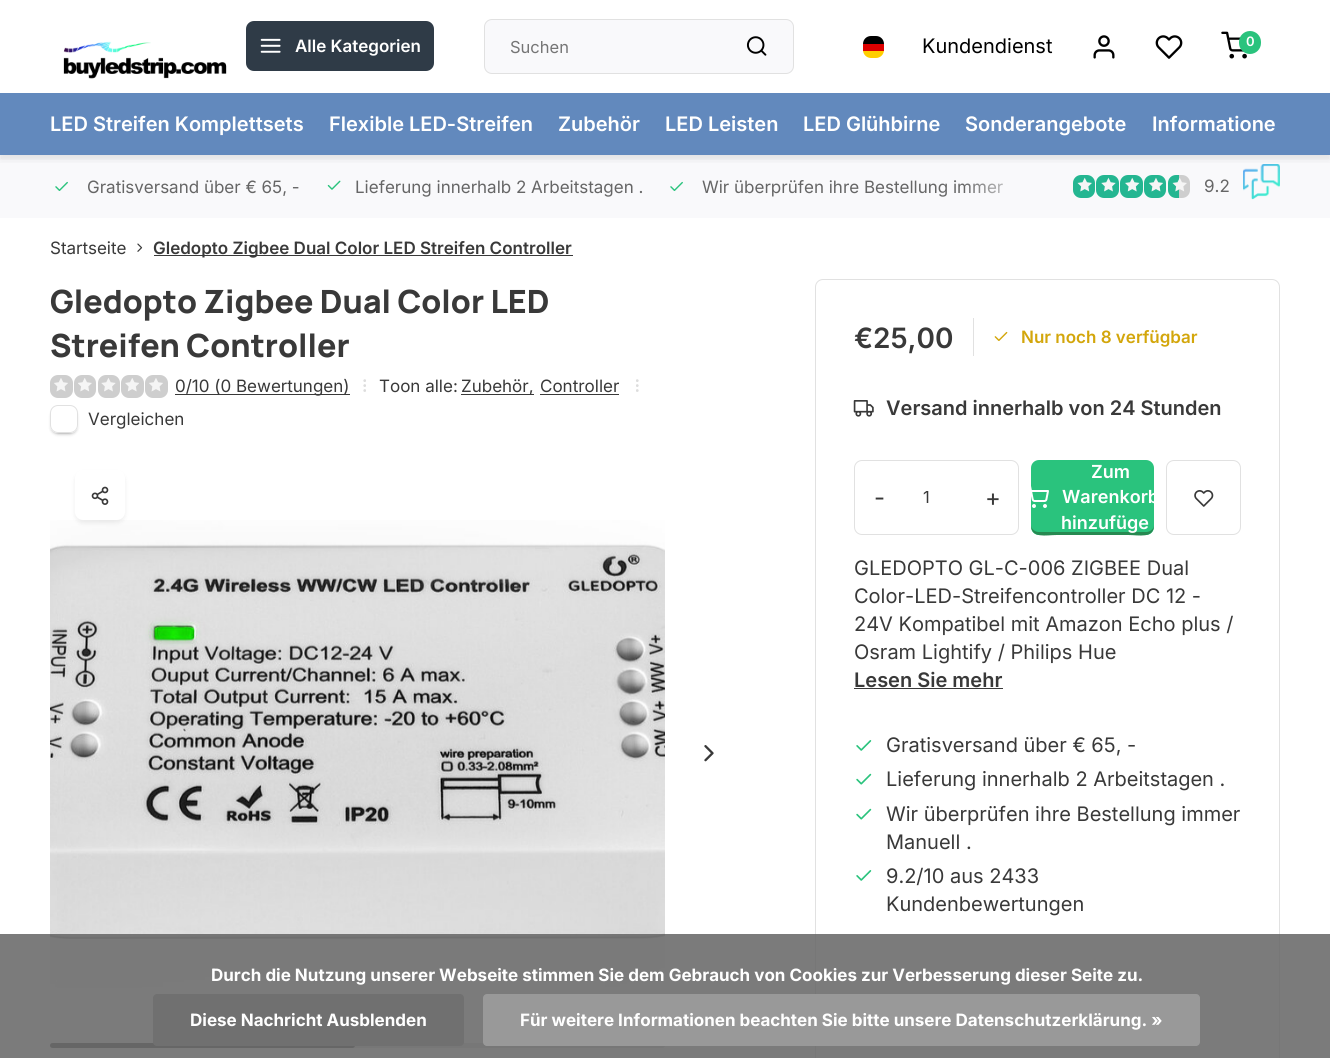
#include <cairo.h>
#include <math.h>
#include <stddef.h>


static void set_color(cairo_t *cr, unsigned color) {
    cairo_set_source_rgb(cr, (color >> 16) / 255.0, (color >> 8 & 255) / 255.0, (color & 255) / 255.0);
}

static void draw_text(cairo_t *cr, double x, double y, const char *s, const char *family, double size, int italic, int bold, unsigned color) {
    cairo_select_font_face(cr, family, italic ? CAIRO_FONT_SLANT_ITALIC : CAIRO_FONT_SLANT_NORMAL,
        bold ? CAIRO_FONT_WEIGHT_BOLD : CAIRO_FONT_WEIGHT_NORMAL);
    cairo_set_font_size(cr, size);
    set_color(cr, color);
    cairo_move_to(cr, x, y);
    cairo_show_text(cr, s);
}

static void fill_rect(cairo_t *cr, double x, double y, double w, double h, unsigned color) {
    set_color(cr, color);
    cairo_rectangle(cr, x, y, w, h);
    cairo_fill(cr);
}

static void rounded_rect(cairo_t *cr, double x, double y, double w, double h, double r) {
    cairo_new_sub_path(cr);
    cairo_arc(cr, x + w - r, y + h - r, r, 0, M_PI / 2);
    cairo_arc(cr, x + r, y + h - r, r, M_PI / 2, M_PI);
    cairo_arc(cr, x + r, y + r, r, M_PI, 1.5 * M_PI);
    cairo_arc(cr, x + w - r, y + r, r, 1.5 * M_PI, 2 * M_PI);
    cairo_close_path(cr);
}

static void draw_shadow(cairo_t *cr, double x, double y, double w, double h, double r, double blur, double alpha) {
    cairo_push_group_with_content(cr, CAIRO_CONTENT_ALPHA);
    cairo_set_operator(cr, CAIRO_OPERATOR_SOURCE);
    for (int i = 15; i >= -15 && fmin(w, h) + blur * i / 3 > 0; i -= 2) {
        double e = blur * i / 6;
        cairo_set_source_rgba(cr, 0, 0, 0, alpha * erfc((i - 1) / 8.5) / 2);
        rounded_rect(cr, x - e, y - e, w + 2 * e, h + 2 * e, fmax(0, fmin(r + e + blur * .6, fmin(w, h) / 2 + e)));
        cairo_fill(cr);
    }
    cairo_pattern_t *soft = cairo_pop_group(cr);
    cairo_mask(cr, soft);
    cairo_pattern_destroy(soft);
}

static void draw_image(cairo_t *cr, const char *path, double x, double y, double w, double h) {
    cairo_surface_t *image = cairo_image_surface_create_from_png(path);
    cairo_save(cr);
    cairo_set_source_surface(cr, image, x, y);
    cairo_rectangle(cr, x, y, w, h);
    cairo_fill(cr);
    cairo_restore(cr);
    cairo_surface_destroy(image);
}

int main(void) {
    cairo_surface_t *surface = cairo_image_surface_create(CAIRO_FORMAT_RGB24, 1330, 1058);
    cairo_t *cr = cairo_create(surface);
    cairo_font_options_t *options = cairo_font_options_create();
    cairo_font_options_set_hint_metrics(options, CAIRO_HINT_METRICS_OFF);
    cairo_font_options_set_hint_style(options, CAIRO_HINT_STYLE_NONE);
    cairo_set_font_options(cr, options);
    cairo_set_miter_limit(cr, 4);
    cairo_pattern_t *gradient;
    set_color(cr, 0xFFFFFF);
    cairo_paint(cr);
    fill_rect(cr, 0, 155, 1330, 63, 0xF9F9FB);
    set_color(cr, 0x24B691);
    rounded_rect(cr, 1073, 175, 22, 23, 8);
    cairo_fill(cr);
    draw_image(cr, "assets/img9.png", 1077, 177, 15, 15);
    rounded_rect(cr, 1096, 175, 23, 23, 8);
    cairo_fill(cr);
    draw_image(cr, "assets/img10.png", 1101, 177, 15, 15);
    rounded_rect(cr, 1120, 175, 23, 23, 8);
    cairo_fill(cr);
    draw_image(cr, "assets/img11.png", 1125, 177, 15, 15);
    rounded_rect(cr, 1144, 175, 22, 23, 8);
    cairo_fill(cr);
    draw_image(cr, "assets/img12.png", 1149, 177, 14, 15);
    cairo_new_path(cr);
    cairo_move_to(cr, 1176, 175);
    cairo_line_to(cr, 1179, 175);
    cairo_line_to(cr, 1179, 198);
    cairo_line_to(cr, 1176, 198);
    cairo_curve_to(cr, 1171.5, 198, 1168, 194.5, 1168, 190);
    cairo_line_to(cr, 1168, 183);
    cairo_curve_to(cr, 1168, 178.5, 1171.5, 175, 1176, 175);
    cairo_close_path(cr);
    cairo_fill(cr);
    set_color(cr, 0xCECECE);
    cairo_new_path(cr);
    cairo_move_to(cr, 1179, 175);
    cairo_line_to(cr, 1182, 175);
    cairo_curve_to(cr, 1186.5, 175, 1190, 178.5, 1190, 183);
    cairo_line_to(cr, 1190, 190);
    cairo_curve_to(cr, 1190, 194.5, 1186.5, 198, 1182, 198);
    cairo_line_to(cr, 1179, 198);
    cairo_close_path(cr);
    cairo_fill(cr);
    draw_image(cr, "assets/img13.png", 1172, 178, 15, 14);
    draw_image(cr, "assets/img14.png", 1243, 164, 37, 36);
    cairo_save(cr);
    cairo_rectangle(cr, 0, 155, 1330, 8);
    cairo_clip(cr);
    set_color(cr, 0x000000);
    draw_shadow(cr, 0, 6, 1330, 155, 0, 6, 0.05);
    cairo_restore(cr);
    cairo_save(cr);
    cairo_rectangle(cr, 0, 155, 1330, 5);
    cairo_clip(cr);
    set_color(cr, 0x000000);
    draw_shadow(cr, 0, 4, 1330, 155, 0, 2.5, 0.05);
    cairo_restore(cr);
    draw_image(cr, "assets/img1.png", 63, 41, 164, 38);
    set_color(cr, 0x2F3B47);
    rounded_rect(cr, 246, 21, 188, 50, 8);
    cairo_fill(cr);
    draw_image(cr, "assets/img2.png", 260, 38, 21, 15);
    draw_text(cr, 295, 52, "Alle Kategorien", "Inter SemiBold", 17, 0, 0, 0xFFFFFF);
    set_color(cr, 0xF9F9FB);
    rounded_rect(cr, 484.5, 19.5, 309, 54, 7.5);
    cairo_fill_preserve(cr);
    set_color(cr, 0xE1E1E1);
    cairo_set_line_width(cr, 1);
    cairo_stroke(cr);
    draw_text(cr, 510, 53, "Suchen", "Inter", 16.5, 0, 0, 0x757575);
    draw_image(cr, "assets/img3.png", 746, 36, 21, 20);
    cairo_save(cr);
    rounded_rect(cr, 863, 36, 21, 22, 8);
    cairo_clip(cr);
    fill_rect(cr, 863, 51, 21, 7, 0xFFCE00);
    cairo_restore(cr);
    set_color(cr, 0x000000);
    cairo_new_path(cr);
    cairo_move_to(cr, 871, 36);
    cairo_line_to(cr, 876, 36);
    cairo_curve_to(cr, 880.5, 36, 884, 39.5, 884, 44);
    cairo_line_to(cr, 863, 44);
    cairo_curve_to(cr, 863, 39.5, 866.5, 36, 871, 36);
    cairo_close_path(cr);
    cairo_fill(cr);
    fill_rect(cr, 863, 44, 21, 7, 0xDD0000);
    draw_text(cr, 922, 53, "Kundendienst", "Inter", 20, 0, 0, 0x000000);
    draw_image(cr, "assets/img4.png", 1093, 35, 22, 24);
    draw_image(cr, "assets/img5.png", 1155, 35, 28, 24);
    draw_image(cr, "assets/img6.png", 1221, 31, 26, 28);
    set_color(cr, 0x2AC37D);
    rounded_rect(cr, 1239, 31, 22, 23, 11);
    cairo_fill(cr);
    draw_text(cr, 1246, 46, "0", "Inter SemiBold", 13, 0, 0, 0xFFFFFF);
    fill_rect(cr, 0, 93, 1330, 62, 0x6289BD);
    draw_text(cr, 50, 131, "LED Streifen Komplettsets", "Inter SemiBold", 20, 0, 0, 0xFFFFFF);
    draw_text(cr, 329, 131, "Flexible LED-Streifen", "Inter SemiBold", 20, 0, 0, 0xFFFFFF);
    draw_text(cr, 558, 131, "Zubehör", "Inter SemiBold", 20, 0, 0, 0xFFFFFF);
    draw_text(cr, 665, 131, "LED Leisten", "Inter SemiBold", 20, 0, 0, 0xFFFFFF);
    draw_text(cr, 803, 131, "LED Glühbirne", "Inter SemiBold", 20, 0, 0, 0xFFFFFF);
    draw_text(cr, 965, 131, "Sonderangebote", "Inter SemiBold", 20, 0, 0, 0xFFFFFF);
    draw_text(cr, 1152, 131, "Informatione", "Inter SemiBold", 20, 0, 0, 0xFFFFFF);
    draw_image(cr, "assets/img7.png", 55, 181, 13, 10);
    draw_text(cr, 87, 193, "Gratisversand über € 65, -", "Inter", 17, 0, 0, 0x666666);
    draw_image(cr, "assets/img8.png", 327, 180, 14, 10);
    draw_text(cr, 355, 193, "Lieferung innerhalb 2 Arbeitstagen .", "Inter", 17, 0, 0, 0x666666);
    draw_image(cr, "assets/img7.png", 670, 181, 13, 10);
    draw_text(cr, 702, 193, "Wir überprüfen ihre Bestellung immer", "Inter", 17, 0, 0, 0x666666);
    gradient = cairo_pattern_create_linear(963, 186, 1035, 186);
    cairo_pattern_add_color_stop_rgba(gradient, 0, 0.976, 0.976, 0.984, 0);
    cairo_pattern_add_color_stop_rgba(gradient, 1, 0.976, 0.976, 0.984, 1);
    cairo_set_source(cr, gradient);
    cairo_pattern_destroy(gradient);
    cairo_rectangle(cr, 965, 183, 38, 11);
    cairo_fill(cr);
    draw_text(cr, 1204, 192, "9.2", "Inter", 17, 0, 0, 0x666666);
    draw_text(cr, 50, 254, "Startseite", "Inter", 17, 0, 0, 0x393939);
    draw_image(cr, "assets/img15.png", 137, 243, 6, 9);
    fill_rect(cr, 154, 255, 419, 1, 0x393939);
    draw_text(cr, 153, 254, "Gledopto Zigbee Dual Color LED Streifen Controller", "Inter SemiBold", 17, 0, 0, 0x393939);
    draw_text(cr, 50, 313, "Gledopto Zigbee Dual Color LED", "Manrope ExtraLight", 32, 0, 0, 0x393939);
    draw_text(cr, 50, 357, "Streifen Controller", "Manrope ExtraLight", 32, 0, 0, 0x393939);
    set_color(cr, 0xCECECE);
    rounded_rect(cr, 50, 375, 23, 23, 8);
    cairo_fill(cr);
    draw_image(cr, "assets/img16.png", 54, 378, 14, 14);
    rounded_rect(cr, 74, 375, 22, 23, 8);
    cairo_fill(cr);
    draw_image(cr, "assets/img17.png", 78, 378, 14, 14);
    rounded_rect(cr, 98, 375, 22, 23, 8);
    cairo_fill(cr);
    draw_image(cr, "assets/img18.png", 101, 378, 15, 14);
    rounded_rect(cr, 121, 375, 23, 23, 8);
    cairo_fill(cr);
    draw_image(cr, "assets/img19.png", 125, 378, 14, 14);
    rounded_rect(cr, 145, 375, 23, 23, 8);
    cairo_fill(cr);
    draw_image(cr, "assets/img16.png", 149, 378, 14, 14);
    fill_rect(cr, 175, 394, 175, 1, 0x393939);
    draw_text(cr, 175, 392, "0/10 (0 Bewertungen)", "Inter", 17, 0, 0, 0x393939);
    draw_image(cr, "assets/img20.png", 363, 379, 3, 13);
    draw_text(cr, 379, 392, "Toon alle:", "Inter", 17, 0, 0, 0x393939);
    fill_rect(cr, 461, 394, 73, 1, 0x393939);
    draw_text(cr, 461, 392, "Zubehör,", "Inter", 17, 0, 0, 0x393939);
    draw_text(cr, 540, 392, "Controller", "Inter", 17, 0, 0, 0x393939);
    fill_rect(cr, 540, 394, 79, 1, 0x393939);
    draw_image(cr, "assets/img21.png", 636, 379, 3, 13);
    cairo_save(cr);
    cairo_set_fill_rule(cr, CAIRO_FILL_RULE_EVEN_ODD);
    cairo_new_path(cr);
    cairo_move_to(cr, 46, 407);
    cairo_line_to(cr, 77, 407);
    cairo_line_to(cr, 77, 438);
    cairo_line_to(cr, 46, 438);
    cairo_close_path(cr);
    cairo_move_to(cr, 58, 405);
    cairo_line_to(cr, 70, 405);
    cairo_curve_to(cr, 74.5, 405, 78, 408.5, 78, 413);
    cairo_line_to(cr, 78, 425);
    cairo_curve_to(cr, 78, 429.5, 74.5, 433, 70, 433);
    cairo_line_to(cr, 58, 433);
    cairo_curve_to(cr, 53.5, 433, 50, 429.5, 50, 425);
    cairo_line_to(cr, 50, 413);
    cairo_curve_to(cr, 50, 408.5, 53.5, 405, 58, 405);
    cairo_close_path(cr);
    cairo_clip(cr);
    set_color(cr, 0x999999);
    draw_shadow(cr, 53, 414, 17, 17, 2.5, 2, 1);
    cairo_restore(cr);
    cairo_save(cr);
    cairo_set_fill_rule(cr, CAIRO_FILL_RULE_EVEN_ODD);
    cairo_new_path(cr);
    cairo_move_to(cr, 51, 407);
    cairo_line_to(cr, 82, 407);
    cairo_line_to(cr, 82, 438);
    cairo_line_to(cr, 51, 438);
    cairo_close_path(cr);
    cairo_move_to(cr, 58, 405);
    cairo_line_to(cr, 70, 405);
    cairo_curve_to(cr, 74.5, 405, 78, 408.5, 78, 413);
    cairo_line_to(cr, 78, 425);
    cairo_curve_to(cr, 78, 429.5, 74.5, 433, 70, 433);
    cairo_line_to(cr, 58, 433);
    cairo_curve_to(cr, 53.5, 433, 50, 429.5, 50, 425);
    cairo_line_to(cr, 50, 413);
    cairo_curve_to(cr, 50, 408.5, 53.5, 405, 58, 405);
    cairo_close_path(cr);
    cairo_clip(cr);
    set_color(cr, 0x999999);
    draw_shadow(cr, 58, 414, 17, 17, 2.5, 2, 1);
    cairo_restore(cr);
    cairo_save(cr);
    cairo_set_fill_rule(cr, CAIRO_FILL_RULE_EVEN_ODD);
    cairo_new_path(cr);
    cairo_move_to(cr, 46, 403);
    cairo_line_to(cr, 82, 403);
    cairo_line_to(cr, 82, 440);
    cairo_line_to(cr, 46, 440);
    cairo_close_path(cr);
    cairo_move_to(cr, 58, 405);
    cairo_line_to(cr, 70, 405);
    cairo_curve_to(cr, 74.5, 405, 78, 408.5, 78, 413);
    cairo_line_to(cr, 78, 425);
    cairo_curve_to(cr, 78, 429.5, 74.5, 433, 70, 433);
    cairo_line_to(cr, 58, 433);
    cairo_curve_to(cr, 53.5, 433, 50, 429.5, 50, 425);
    cairo_line_to(cr, 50, 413);
    cairo_curve_to(cr, 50, 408.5, 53.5, 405, 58, 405);
    cairo_close_path(cr);
    cairo_clip(cr);
    set_color(cr, 0x999999);
    draw_shadow(cr, 53, 410, 22, 23, 5, 2, 1);
    cairo_restore(cr);
    rounded_rect(cr, 50.5, 405.5, 27, 27, 7.5);
    set_color(cr, 0xE1E1E1);
    cairo_stroke(cr);
    draw_text(cr, 88, 425, "Vergleichen", "Inter", 17, 0, 0, 0x393939);
    draw_image(cr, "assets/img23.png", 50, 520, 615, 468);
    set_color(cr, 0x000000);
    draw_shadow(cr, 75, 473, 50, 50, 8, 2.5, 0.07);
    set_color(cr, 0xFFFFFF);
    rounded_rect(cr, 75, 470, 50, 50, 8);
    cairo_fill(cr);
    draw_image(cr, "assets/img22.png", 91, 486, 18, 19);
    draw_image(cr, "assets/img24.png", 704, 745, 10, 17);
    set_color(cr, 0xE6E6E6);
    rounded_rect(cr, 50, 1043, 615, 5, 2.5);
    cairo_fill(cr);
    cairo_set_source_rgba(cr, 0, 0, 0, 0.5);
    rounded_rect(cr, 50, 1043, 305, 5, 2.5);
    cairo_fill(cr);
    rounded_rect(cr, 815.5, 279.5, 464, 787, 7.5);
    set_color(cr, 0xE1E1E1);
    cairo_stroke(cr);
    fill_rect(cr, 973, 318, 1, 38, 0xE1E1E1);
    draw_text(cr, 854, 348, "€25,00", "Inter SemiBold", 28, 0, 0, 0x393939);
    draw_image(cr, "assets/img25.png", 994, 331, 14, 10);
    draw_text(cr, 1021, 343, "Nur noch 8 verfügbar", "Inter SemiBold", 17, 0, 0, 0xD3A60B);
    draw_image(cr, "assets/img26.png", 853, 400, 21, 17);
    draw_text(cr, 886, 415, "Versand innerhalb von 24 Stunden", "Inter SemiBold", 20, 0, 0, 0x393939);
    rounded_rect(cr, 854.5, 460.5, 164, 74, 7.5);
    set_color(cr, 0xE1E1E1);
    cairo_stroke(cr);
    draw_text(cr, 874, 506, "-", "Inter", 24, 0, 0, 0x393939);
    draw_text(cr, 923, 503, "1", "Inter", 16.5, 0, 0, 0x393939);
    draw_text(cr, 985, 506, "+", "Inter", 24, 0, 0, 0x393939);
    set_color(cr, 0x2AC37D);
    rounded_rect(cr, 1031, 460, 123, 75, 8);
    cairo_fill(cr);
    set_color(cr, 0x278951);
    cairo_new_path(cr);
    cairo_move_to(cr, 1031, 525);
    cairo_curve_to(cr, 1031, 539, 1046, 535, 1057, 535);
    cairo_line_to(cr, 1128, 535);
    cairo_curve_to(cr, 1139, 535, 1154, 539, 1154, 525);
    cairo_curve_to(cr, 1154, 529, 1150, 532, 1146, 532);
    cairo_line_to(cr, 1039, 532);
    cairo_curve_to(cr, 1035, 532, 1031, 529, 1031, 525);
    cairo_close_path(cr);
    cairo_fill(cr);
    draw_image(cr, "assets/img27.png", 1031, 486, 18, 22);
    draw_text(cr, 1091, 478, "Zum", "Inter SemiBold", 18, 0, 0, 0xFFFFFF);
    draw_text(cr, 1062, 503, "Warenkorb", "Inter SemiBold", 18, 0, 0, 0xFFFFFF);
    draw_text(cr, 1061, 529, "hinzufüge", "Inter SemiBold", 18, 0, 0, 0xFFFFFF);
    rounded_rect(cr, 1166.5, 460.5, 74, 74, 7.5);
    set_color(cr, 0xE1E1E1);
    cairo_stroke(cr);
    draw_image(cr, "assets/img28.png", 1194, 490, 20, 17);
    draw_text(cr, 854, 575, "GLEDOPTO GL-C-006 ZIGBEE Dual", "Inter", 20, 0, 0, 0x393939);
    draw_text(cr, 854, 603, "Color-LED-Streifencontroller DC 12 -", "Inter", 20, 0, 0, 0x393939);
    draw_text(cr, 854, 631, "24V Kompatibel mit Amazon Echo plus /", "Inter", 20, 0, 0, 0x393939);
    draw_text(cr, 854, 659, "Osram Lightify / Philips Hue", "Inter", 20, 0, 0, 0x393939);
    draw_text(cr, 854, 687, "Lesen Sie mehr", "Inter SemiBold", 20, 0, 0, 0x393939);
    fill_rect(cr, 854, 688, 149, 1, 0x393939);
    draw_image(cr, "assets/img29.png", 856, 740, 16, 11);
    draw_text(cr, 886, 752, "Gratisversand über € 65, -", "Inter", 20, 0, 0, 0x393939);
    draw_image(cr, "assets/img30.png", 856, 773, 16, 12);
    draw_text(cr, 886, 786, "Lieferung innerhalb 2 Arbeitstagen .", "Inter", 20, 0, 0, 0x393939);
    draw_image(cr, "assets/img30.png", 856, 808, 16, 12);
    draw_text(cr, 886, 821, "Wir überprüfen ihre Bestellung immer", "Inter", 20, 0, 0, 0x393939);
    draw_text(cr, 886, 849, "Manuell .", "Inter", 20, 0, 0, 0x393939);
    draw_image(cr, "assets/img29.png", 856, 870, 16, 11);
    draw_text(cr, 886, 883, "9.2/10 aus 2433", "Inter", 20, 0, 0, 0x393939);
    draw_text(cr, 886, 911, "Kundenbewertungen", "Inter", 20, 0, 0, 0x393939);
    cairo_set_source_rgba(cr, 0.392, 0.392, 0.392, 0.85);
    cairo_rectangle(cr, 0, 934, 1330, 124);
    cairo_fill(cr);
    draw_text(cr, 211, 981, "Durch die Nutzung unserer Webseite stimmen Sie dem Gebrauch von Cookies zur Verbesserung dieser Seite zu.", "Inter", 17, 0, 1, 0xFFFFFF);
    set_color(cr, 0x707070);
    rounded_rect(cr, 153, 994, 311, 52, 4);
    cairo_fill(cr);
    draw_text(cr, 190, 1026, "Diese Nachricht Ausblenden", "Inter", 17, 0, 1, 0xFFFFFF);
    set_color(cr, 0x999999);
    rounded_rect(cr, 483, 994, 717, 52, 4);
    cairo_fill(cr);
    draw_text(cr, 520, 1026, "Für weitere Informationen beachten Sie bitte unsere Datenschutzerklärung. »", "Inter", 17, 0, 1, 0xFFFFFF);
    cairo_surface_write_to_png(surface, "output.png");
    cairo_font_options_destroy(options);
    cairo_destroy(cr);
    cairo_surface_destroy(surface);
    return 0;
}
